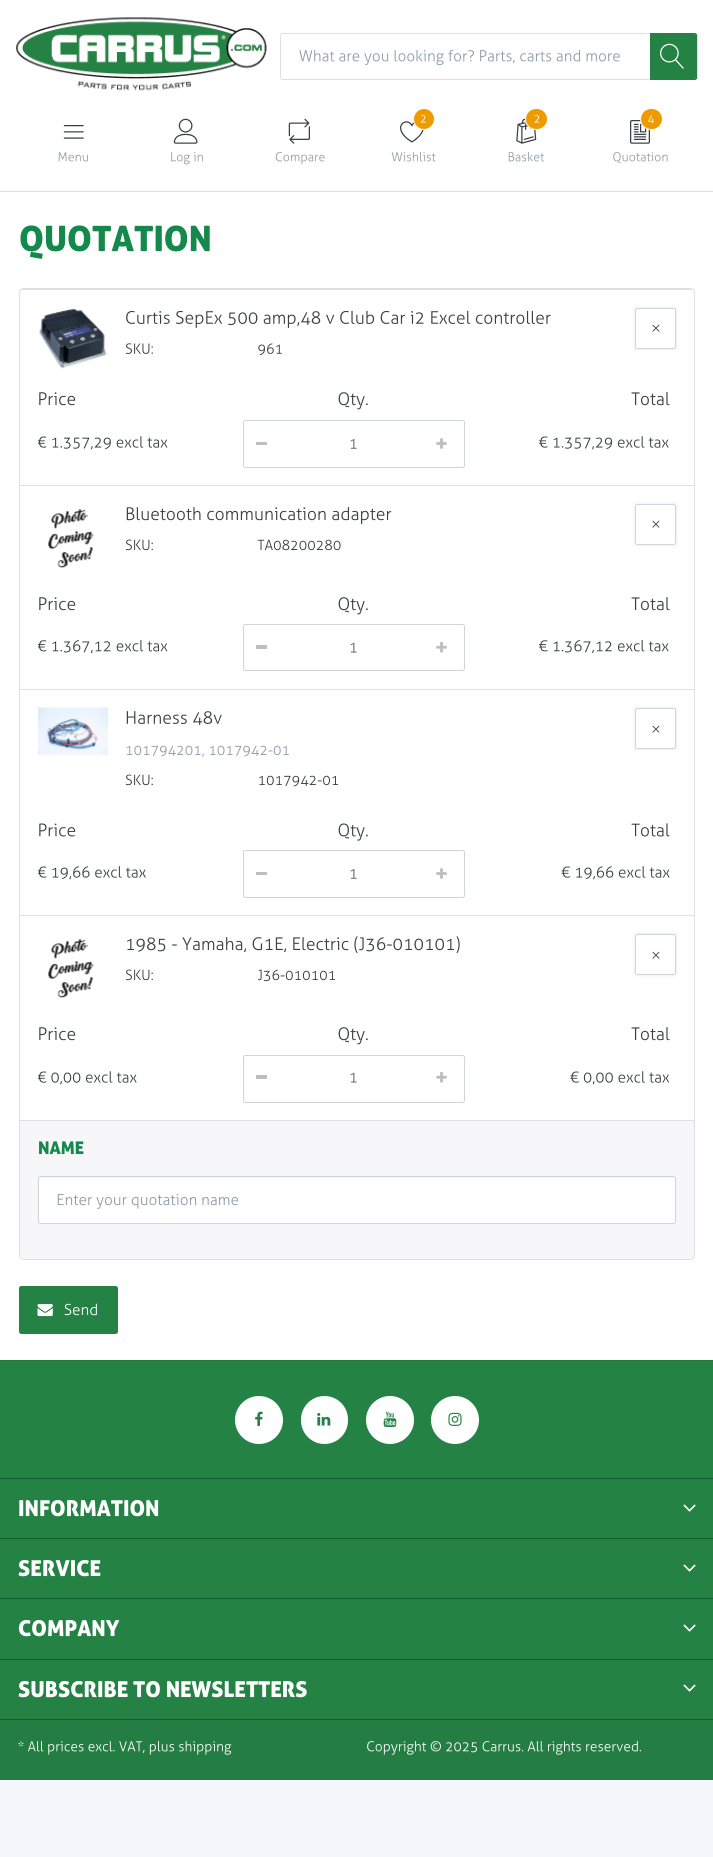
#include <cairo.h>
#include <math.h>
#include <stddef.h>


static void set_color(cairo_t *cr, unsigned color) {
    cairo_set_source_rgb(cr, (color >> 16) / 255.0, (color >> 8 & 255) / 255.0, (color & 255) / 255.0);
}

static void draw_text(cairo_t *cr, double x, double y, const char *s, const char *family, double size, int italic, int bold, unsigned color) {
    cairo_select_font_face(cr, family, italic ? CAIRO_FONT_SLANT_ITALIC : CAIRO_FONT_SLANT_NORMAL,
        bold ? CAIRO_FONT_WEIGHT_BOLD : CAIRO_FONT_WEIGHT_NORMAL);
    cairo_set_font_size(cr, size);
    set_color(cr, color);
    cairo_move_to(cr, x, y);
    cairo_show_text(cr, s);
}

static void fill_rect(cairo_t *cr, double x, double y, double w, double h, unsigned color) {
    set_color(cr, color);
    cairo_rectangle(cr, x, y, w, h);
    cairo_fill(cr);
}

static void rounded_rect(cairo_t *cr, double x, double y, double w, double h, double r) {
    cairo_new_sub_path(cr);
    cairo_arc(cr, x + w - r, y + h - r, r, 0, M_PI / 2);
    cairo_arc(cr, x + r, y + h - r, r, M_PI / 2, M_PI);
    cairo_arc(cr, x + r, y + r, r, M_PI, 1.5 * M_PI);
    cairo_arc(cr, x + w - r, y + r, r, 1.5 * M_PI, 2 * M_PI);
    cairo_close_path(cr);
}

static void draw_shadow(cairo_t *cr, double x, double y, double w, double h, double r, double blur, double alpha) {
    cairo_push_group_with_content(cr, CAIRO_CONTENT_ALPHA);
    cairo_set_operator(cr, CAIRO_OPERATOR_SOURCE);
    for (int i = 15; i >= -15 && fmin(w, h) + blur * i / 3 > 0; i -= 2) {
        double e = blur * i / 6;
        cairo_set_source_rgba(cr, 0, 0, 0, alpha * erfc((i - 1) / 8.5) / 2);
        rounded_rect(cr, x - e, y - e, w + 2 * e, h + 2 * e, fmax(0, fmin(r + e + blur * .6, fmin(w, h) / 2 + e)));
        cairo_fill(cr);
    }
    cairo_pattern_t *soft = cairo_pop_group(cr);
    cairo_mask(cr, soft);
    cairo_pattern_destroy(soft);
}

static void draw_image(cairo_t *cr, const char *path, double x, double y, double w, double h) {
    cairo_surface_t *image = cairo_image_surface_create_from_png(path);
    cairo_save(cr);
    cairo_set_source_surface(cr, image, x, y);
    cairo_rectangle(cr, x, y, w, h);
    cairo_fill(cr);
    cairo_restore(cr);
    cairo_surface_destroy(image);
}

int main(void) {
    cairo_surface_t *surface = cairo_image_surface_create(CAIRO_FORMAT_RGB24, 713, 1857);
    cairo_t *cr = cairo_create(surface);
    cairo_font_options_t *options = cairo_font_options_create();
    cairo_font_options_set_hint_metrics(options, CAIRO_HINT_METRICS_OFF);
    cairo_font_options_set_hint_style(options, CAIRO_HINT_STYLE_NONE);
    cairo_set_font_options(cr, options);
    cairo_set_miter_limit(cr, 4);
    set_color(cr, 0xF6F6FD);
    cairo_paint(cr);
    fill_rect(cr, 0, 0, 713, 1360, 0xFFFFFF);
    fill_rect(cr, 0, 191, 713, 1, 0xE0E0E0);
    draw_image(cr, "assets/img1.png", 16, 17, 251, 74);
    rounded_rect(cr, 280.5, 33.5, 417, 46, 2);
    cairo_set_line_width(cr, 1);
    cairo_stroke(cr);
    draw_image(cr, "assets/img2.png", 299, 49, 321, 16);
    set_color(cr, 0x258245);
    cairo_new_path(cr);
    cairo_move_to(cr, 650, 34);
    cairo_line_to(cr, 695, 34);
    cairo_curve_to(cr, 695.5, 34, 696, 34.5, 696, 35);
    cairo_line_to(cr, 696, 78);
    cairo_curve_to(cr, 696, 78.5, 695.5, 79, 695, 79);
    cairo_line_to(cr, 650, 79);
    cairo_close_path(cr);
    cairo_fill(cr);
    fill_rect(cr, 650, 33, 46, 1, 0x258245);
    fill_rect(cr, 696, 34, 1, 45, 0x258245);
    fill_rect(cr, 650, 79, 46, 1, 0x258245);
    draw_image(cr, "assets/img3.png", 660, 43, 24, 26);
    draw_image(cr, "assets/img4.png", 63, 125, 21, 14);
    draw_image(cr, "assets/img5.png", 58, 152, 30, 10);
    draw_image(cr, "assets/img6.png", 173, 118, 25, 26);
    draw_image(cr, "assets/img7.png", 171, 152, 32, 13);
    draw_image(cr, "assets/img8.png", 288, 118, 22, 26);
    draw_image(cr, "assets/img9.png", 275, 152, 50, 13);
    draw_image(cr, "assets/img11.png", 400, 121, 24, 22);
    set_color(cr, 0xEE9B00);
    cairo_arc(cr, 424, 119, 10.5, 0, 2 * M_PI);
    cairo_fill_preserve(cr);
    set_color(cr, 0xFFFFFF);
    cairo_stroke(cr);
    draw_image(cr, "assets/img10.png", 420, 115, 6, 8);
    draw_image(cr, "assets/img12.png", 391, 152, 45, 10);
    draw_image(cr, "assets/img14.png", 516, 118, 21, 26);
    set_color(cr, 0xEE9B00);
    rounded_rect(cr, 525.5, 108.5, 22, 21, 10.5);
    cairo_fill_preserve(cr);
    set_color(cr, 0xFFFFFF);
    cairo_stroke(cr);
    draw_image(cr, "assets/img13.png", 534, 115, 6, 8);
    draw_image(cr, "assets/img15.png", 508, 152, 36, 10);
    draw_image(cr, "assets/img17.png", 630, 120, 20, 24);
    set_color(cr, 0xEE9B00);
    rounded_rect(cr, 640.5, 108.5, 22, 21, 10.5);
    cairo_fill_preserve(cr);
    set_color(cr, 0xFFFFFF);
    cairo_stroke(cr);
    draw_image(cr, "assets/img16.png", 648, 115, 6, 9);
    draw_image(cr, "assets/img18.png", 613, 152, 55, 11);
    draw_text(cr, 19, 251, "QUOTATION", "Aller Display", 35, 0, 0, 0x15894C);
    rounded_rect(cr, 19.5, 288.5, 675, 971, 4.5);
    set_color(cr, 0xDFDFDF);
    cairo_stroke(cr);
    fill_rect(cr, 20, 1120, 674, 1, 0xDEE2E6);
    fill_rect(cr, 20, 289, 674, 1, 0xDEE2E6);
    draw_image(cr, "assets/img19.png", 39, 308, 69, 61);
    draw_image(cr, "assets/img20.png", 126, 310, 425, 18);
    draw_image(cr, "assets/img21.png", 125, 343, 28, 11);
    draw_image(cr, "assets/img22.png", 258, 343, 24, 13);
    set_color(cr, 0x000000);
    draw_shadow(cr, 635, 308, 41, 41, 0, 2, 0.1);
    set_color(cr, 0xFFFFFF);
    rounded_rect(cr, 635.5, 308.5, 40, 40, 2);
    cairo_fill_preserve(cr);
    set_color(cr, 0xCED4DA);
    cairo_stroke(cr);
    draw_text(cr, 651, 334, "×", "Liberation Serif", 17.5, 0, 0, 0x393F46);
    draw_image(cr, "assets/img23.png", 39, 392, 37, 14);
    draw_image(cr, "assets/img24.png", 37, 436, 131, 14);
    draw_image(cr, "assets/img25.png", 338, 392, 30, 18);
    rounded_rect(cr, 243.5, 420.5, 221, 47, 2);
    set_color(cr, 0xCED4DA);
    cairo_stroke(cr);
    draw_image(cr, "assets/img26.png", 350, 438, 7, 11);
    fill_rect(cr, 256, 442, 11, 3, 0xBDBEBF);
    draw_image(cr, "assets/img27.png", 436, 438, 11, 11);
    draw_image(cr, "assets/img28.png", 631, 392, 39, 14);
    draw_image(cr, "assets/img29.png", 539, 436, 130, 14);
    fill_rect(cr, 20, 485, 674, 1, 0xDEE2E6);
    draw_image(cr, "assets/img30.png", 48, 509, 46, 59);
    draw_image(cr, "assets/img31.png", 126, 507, 266, 18);
    draw_image(cr, "assets/img32.png", 125, 539, 28, 12);
    draw_image(cr, "assets/img33.png", 257, 539, 84, 12);
    cairo_save(cr);
    cairo_set_fill_rule(cr, CAIRO_FILL_RULE_EVEN_ODD);
    cairo_new_path(cr);
    cairo_move_to(cr, 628, 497);
    cairo_line_to(cr, 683, 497);
    cairo_line_to(cr, 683, 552);
    cairo_line_to(cr, 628, 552);
    cairo_close_path(cr);
    cairo_move_to(cr, 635, 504);
    cairo_line_to(cr, 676, 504);
    cairo_line_to(cr, 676, 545);
    cairo_line_to(cr, 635, 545);
    cairo_close_path(cr);
    cairo_clip(cr);
    set_color(cr, 0x000000);
    draw_shadow(cr, 635, 504, 41, 41, 0, 2, 0.1);
    cairo_restore(cr);
    rounded_rect(cr, 635.5, 504.5, 40, 40, 2);
    set_color(cr, 0xCED4DA);
    cairo_stroke(cr);
    draw_text(cr, 651, 530, "×", "Liberation Serif", 17.5, 0, 0, 0x393F46);
    draw_image(cr, "assets/img23.png", 39, 597, 37, 14);
    draw_image(cr, "assets/img34.png", 37, 640, 131, 13);
    draw_image(cr, "assets/img25.png", 338, 597, 30, 18);
    rounded_rect(cr, 243.5, 624.5, 221, 46, 2);
    set_color(cr, 0xCED4DA);
    cairo_stroke(cr);
    draw_image(cr, "assets/img35.png", 350, 642, 7, 11);
    fill_rect(cr, 256, 645, 11, 4, 0xBDBEBF);
    draw_image(cr, "assets/img36.png", 436, 642, 11, 11);
    draw_image(cr, "assets/img28.png", 631, 597, 39, 14);
    draw_image(cr, "assets/img37.png", 539, 640, 130, 13);
    fill_rect(cr, 20, 689, 674, 1, 0xDEE2E6);
    draw_image(cr, "assets/img38.png", 38, 707, 70, 49);
    draw_image(cr, "assets/img39.png", 126, 711, 96, 14);
    draw_image(cr, "assets/img40.png", 126, 745, 163, 12);
    draw_image(cr, "assets/img32.png", 125, 774, 28, 12);
    draw_image(cr, "assets/img41.png", 259, 775, 80, 12);
    set_color(cr, 0x000000);
    draw_shadow(cr, 635, 708, 41, 41, 0, 2, 0.1);
    set_color(cr, 0xFFFFFF);
    rounded_rect(cr, 635.5, 708.5, 40, 40, 2);
    cairo_fill_preserve(cr);
    set_color(cr, 0xCED4DA);
    cairo_stroke(cr);
    draw_text(cr, 651, 735, "×", "Liberation Serif", 17.5, 0, 0, 0x393F46);
    draw_image(cr, "assets/img42.png", 39, 823, 37, 14);
    draw_image(cr, "assets/img43.png", 37, 866, 109, 14);
    draw_image(cr, "assets/img44.png", 338, 823, 30, 18);
    rounded_rect(cr, 243.5, 850.5, 221, 47, 2);
    set_color(cr, 0xCED4DA);
    cairo_stroke(cr);
    draw_image(cr, "assets/img26.png", 350, 868, 7, 11);
    fill_rect(cr, 256, 872, 11, 3, 0xBDBEBF);
    draw_image(cr, "assets/img27.png", 436, 868, 11, 11);
    draw_image(cr, "assets/img45.png", 631, 823, 39, 14);
    draw_image(cr, "assets/img46.png", 561, 866, 109, 14);
    fill_rect(cr, 20, 915, 674, 1, 0xDEE2E6);
    draw_image(cr, "assets/img47.png", 48, 939, 46, 59);
    draw_image(cr, "assets/img48.png", 127, 936, 333, 17);
    draw_image(cr, "assets/img32.png", 125, 969, 28, 12);
    draw_image(cr, "assets/img49.png", 258, 969, 77, 13);
    cairo_save(cr);
    cairo_set_fill_rule(cr, CAIRO_FILL_RULE_EVEN_ODD);
    cairo_new_path(cr);
    cairo_move_to(cr, 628, 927);
    cairo_line_to(cr, 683, 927);
    cairo_line_to(cr, 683, 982);
    cairo_line_to(cr, 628, 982);
    cairo_close_path(cr);
    cairo_move_to(cr, 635, 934);
    cairo_line_to(cr, 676, 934);
    cairo_line_to(cr, 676, 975);
    cairo_line_to(cr, 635, 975);
    cairo_close_path(cr);
    cairo_clip(cr);
    set_color(cr, 0x000000);
    draw_shadow(cr, 635, 934, 41, 41, 0, 2, 0.1);
    cairo_restore(cr);
    rounded_rect(cr, 635.5, 934.5, 40, 40, 2);
    set_color(cr, 0xCED4DA);
    cairo_stroke(cr);
    draw_text(cr, 651, 961, "×", "Liberation Serif", 17.5, 0, 0, 0x393F46);
    draw_image(cr, "assets/img23.png", 39, 1027, 37, 14);
    draw_image(cr, "assets/img50.png", 37, 1071, 100, 14);
    draw_image(cr, "assets/img25.png", 338, 1027, 30, 18);
    rounded_rect(cr, 243.5, 1055.5, 221, 47, 2);
    set_color(cr, 0xCED4DA);
    cairo_stroke(cr);
    draw_image(cr, "assets/img35.png", 350, 1072, 7, 11);
    fill_rect(cr, 256, 1075, 11, 4, 0xBDBEBF);
    draw_image(cr, "assets/img36.png", 436, 1072, 11, 11);
    draw_image(cr, "assets/img28.png", 631, 1027, 39, 14);
    draw_image(cr, "assets/img51.png", 570, 1071, 100, 14);
    set_color(cr, 0xF7F7F9);
    cairo_new_path(cr);
    cairo_move_to(cr, 20, 1121);
    cairo_line_to(cr, 694, 1121);
    cairo_line_to(cr, 694, 1254);
    cairo_curve_to(cr, 694, 1257, 692, 1259, 689, 1259);
    cairo_line_to(cr, 25, 1259);
    cairo_curve_to(cr, 22, 1259, 20, 1257, 20, 1254);
    cairo_close_path(cr);
    cairo_fill(cr);
    draw_text(cr, 38, 1154, "NAME", "Aller Display", 17.5, 0, 0, 0x15894C);
    set_color(cr, 0xFFFFFF);
    rounded_rect(cr, 39, 1178, 636, 45, 1);
    cairo_fill(cr);
    rounded_rect(cr, 38.5, 1176.5, 637, 47, 2);
    set_color(cr, 0xCED4DA);
    cairo_stroke(cr);
    draw_image(cr, "assets/img52.png", 57, 1194, 182, 15);
    set_color(cr, 0x258245);
    rounded_rect(cr, 19.5, 1286.5, 98, 47, 2);
    cairo_fill_preserve(cr);
    cairo_stroke(cr);
    draw_image(cr, "assets/img53.png", 37, 1304, 16, 13);
    draw_image(cr, "assets/img54.png", 64, 1303, 33, 13);
    fill_rect(cr, 0, 1361, 713, 358, 0x258245);
    fill_rect(cr, 0, 1360, 713, 1, 0x21753E);
    set_color(cr, 0xFFFFFF);
    cairo_arc(cr, 259, 1420, 24, 0, 2 * M_PI);
    cairo_fill(cr);
    draw_image(cr, "assets/img55.png", 255, 1411, 8, 15);
    rounded_rect(cr, 301, 1396, 47, 48, 23.5);
    cairo_fill(cr);
    draw_image(cr, "assets/img56.png", 317, 1413, 14, 13);
    cairo_arc(cr, 390, 1420, 24, 0, 2 * M_PI);
    cairo_fill(cr);
    draw_image(cr, "assets/img57.png", 383, 1411, 14, 16);
    cairo_arc(cr, 455, 1420, 24, 0, 2 * M_PI);
    cairo_fill(cr);
    draw_image(cr, "assets/img58.png", 448, 1412, 14, 14);
    fill_rect(cr, 0, 1478, 713, 1, 0x0E5D33);
    fill_rect(cr, 0, 1538, 713, 1, 0x0E5D33);
    draw_text(cr, 18, 1516, "INFORMATION", "Aller Display", 21.9, 0, 0, 0xFFFFFF);
    draw_image(cr, "assets/img59.png", 683, 1504, 13, 8);
    fill_rect(cr, 0, 1598, 713, 1, 0x0E5D33);
    draw_text(cr, 18, 1576, "SERVICE", "Aller Display", 21.9, 0, 0, 0xFFFFFF);
    draw_image(cr, "assets/img59.png", 683, 1564, 13, 8);
    fill_rect(cr, 0, 1659, 713, 1, 0x0E5D33);
    draw_text(cr, 18, 1636, "COMPANY", "Aller Display", 21.9, 0, 0, 0xFFFFFF);
    draw_image(cr, "assets/img59.png", 683, 1624, 13, 8);
    fill_rect(cr, 0, 1719, 713, 1, 0x0E5D33);
    draw_text(cr, 18, 1697, "SUBSCRIBE TO NEWSLETTERS", "Aller Display", 21.9, 0, 0, 0xFFFFFF);
    draw_image(cr, "assets/img59.png", 683, 1684, 13, 8);
    fill_rect(cr, 0, 1720, 713, 60, 0x247E43);
    draw_image(cr, "assets/img60.png", 18, 1741, 214, 14);
    draw_image(cr, "assets/img61.png", 367, 1741, 275, 14);
    cairo_surface_write_to_png(surface, "output.png");
    cairo_font_options_destroy(options);
    cairo_destroy(cr);
    cairo_surface_destroy(surface);
    return 0;
}
